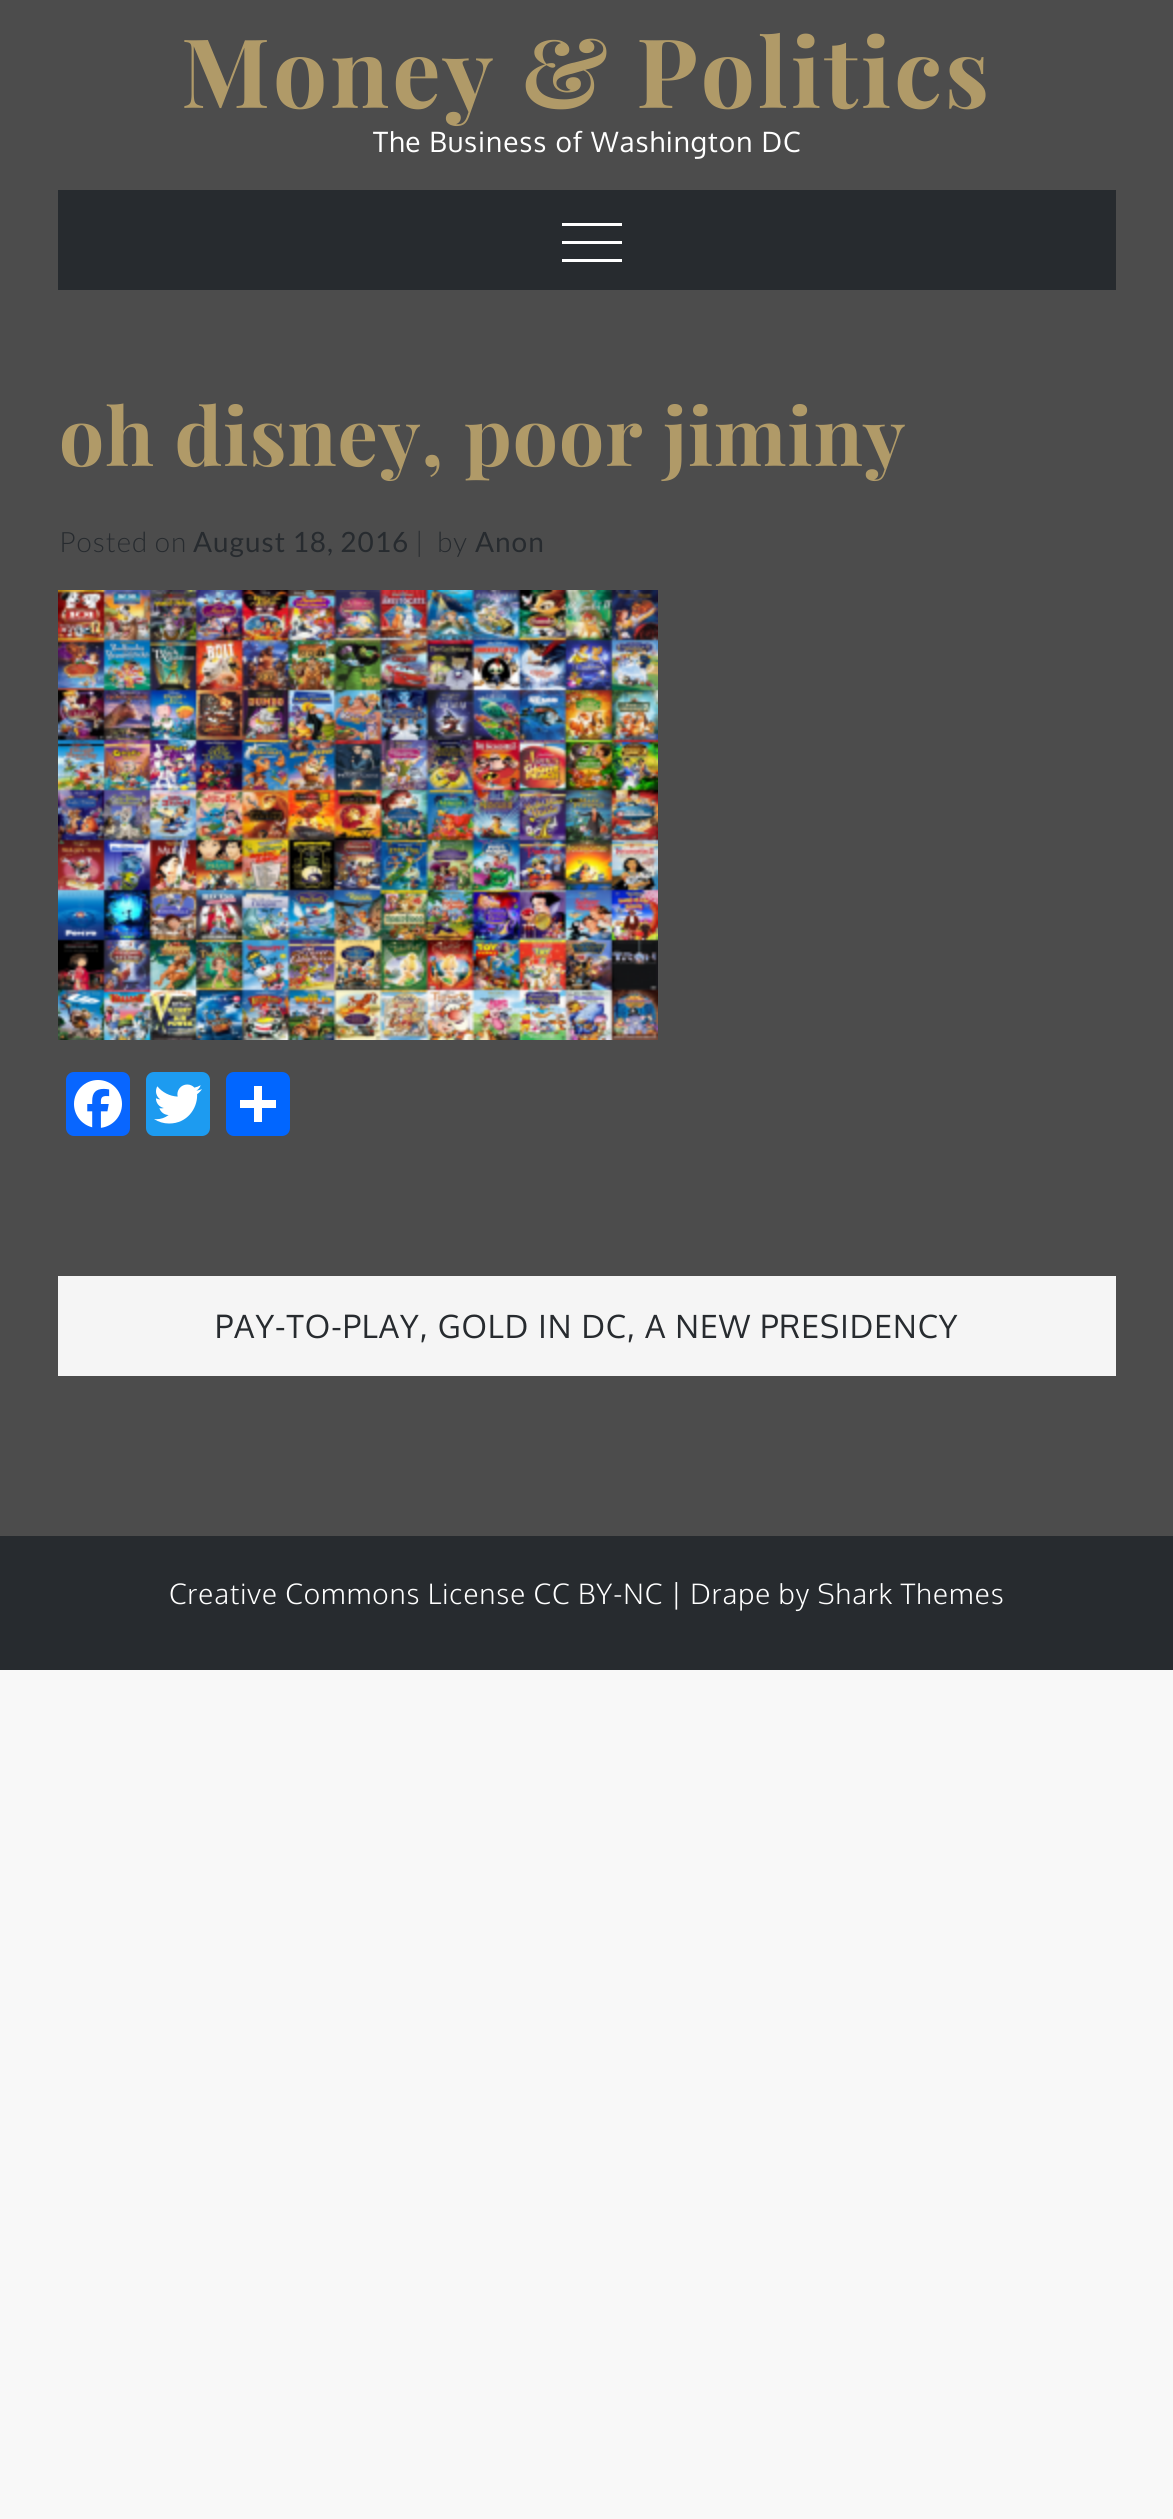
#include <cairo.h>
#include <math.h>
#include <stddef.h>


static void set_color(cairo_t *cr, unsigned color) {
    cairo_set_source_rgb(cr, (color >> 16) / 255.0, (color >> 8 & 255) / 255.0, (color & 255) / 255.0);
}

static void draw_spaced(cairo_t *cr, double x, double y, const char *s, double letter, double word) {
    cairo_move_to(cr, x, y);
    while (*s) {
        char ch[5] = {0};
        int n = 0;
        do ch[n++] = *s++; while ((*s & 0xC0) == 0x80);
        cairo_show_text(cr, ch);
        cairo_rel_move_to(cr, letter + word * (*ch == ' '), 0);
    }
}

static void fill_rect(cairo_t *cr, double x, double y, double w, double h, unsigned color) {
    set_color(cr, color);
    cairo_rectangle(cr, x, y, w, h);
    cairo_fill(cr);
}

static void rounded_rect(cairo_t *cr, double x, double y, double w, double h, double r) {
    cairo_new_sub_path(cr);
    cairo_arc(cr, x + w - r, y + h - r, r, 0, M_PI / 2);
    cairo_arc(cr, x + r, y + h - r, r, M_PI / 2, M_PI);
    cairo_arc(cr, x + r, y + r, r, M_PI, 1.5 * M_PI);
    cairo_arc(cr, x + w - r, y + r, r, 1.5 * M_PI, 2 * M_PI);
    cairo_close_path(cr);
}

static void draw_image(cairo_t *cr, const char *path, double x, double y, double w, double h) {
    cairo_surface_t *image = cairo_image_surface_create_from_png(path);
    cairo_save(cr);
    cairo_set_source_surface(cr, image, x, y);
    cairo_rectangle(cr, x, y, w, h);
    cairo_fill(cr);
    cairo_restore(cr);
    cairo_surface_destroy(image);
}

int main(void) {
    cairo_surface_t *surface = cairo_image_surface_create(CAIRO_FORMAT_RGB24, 1173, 2519);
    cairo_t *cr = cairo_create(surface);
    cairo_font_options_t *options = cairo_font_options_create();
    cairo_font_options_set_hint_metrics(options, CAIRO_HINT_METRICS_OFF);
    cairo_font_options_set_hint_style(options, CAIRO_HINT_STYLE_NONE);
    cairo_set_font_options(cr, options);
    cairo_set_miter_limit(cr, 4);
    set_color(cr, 0xF8F8F8);
    cairo_paint(cr);
    fill_rect(cr, 0, 0, 1173, 1536, 0x4C4C4C);
    cairo_select_font_face(cr, "Playfair Display", CAIRO_FONT_SLANT_NORMAL, CAIRO_FONT_WEIGHT_BOLD);
    cairo_set_font_size(cr, 96);
    set_color(cr, 0xB09A68);
    draw_spaced(cr, 181, 108, "Money & Politics", 3, 0);
    cairo_select_font_face(cr, "Oxygen", CAIRO_FONT_SLANT_NORMAL, CAIRO_FONT_WEIGHT_NORMAL);
    cairo_set_font_size(cr, 28);
    set_color(cr, 0xFFFFFF);
    draw_spaced(cr, 373, 152, "The Business of Washington DC", 1, 0);
    fill_rect(cr, 58, 190, 1058, 100, 0x272B2F);
    fill_rect(cr, 562, 223, 60, 3, 0xFFFFFF);
    fill_rect(cr, 562, 241, 60, 3, 0xFFFFFF);
    fill_rect(cr, 562, 259, 60, 3, 0xFFFFFF);
    cairo_select_font_face(cr, "Playfair Display", CAIRO_FONT_SLANT_NORMAL, CAIRO_FONT_WEIGHT_BOLD);
    cairo_set_font_size(cr, 80);
    set_color(cr, 0xB09A68);
    draw_spaced(cr, 59, 466, "oh disney, poor jiminy", 1, 0);
    cairo_select_font_face(cr, "Lato Light", CAIRO_FONT_SLANT_NORMAL, CAIRO_FONT_WEIGHT_NORMAL);
    cairo_set_font_size(cr, 28);
    set_color(cr, 0x272B2F);
    draw_spaced(cr, 59, 552, "Posted on", 1, 0);
    cairo_select_font_face(cr, "Lato", CAIRO_FONT_SLANT_NORMAL, CAIRO_FONT_WEIGHT_NORMAL);
    draw_spaced(cr, 193, 552, "August 18, 2016", 1, 0);
    cairo_select_font_face(cr, "Lato Light", CAIRO_FONT_SLANT_NORMAL, CAIRO_FONT_WEIGHT_NORMAL);
    draw_spaced(cr, 415, 552, "|", 1, 0);
    draw_spaced(cr, 437, 552, "by", 1, 0);
    cairo_select_font_face(cr, "Lato", CAIRO_FONT_SLANT_NORMAL, CAIRO_FONT_WEIGHT_NORMAL);
    draw_spaced(cr, 475, 552, "Anon", 1, 0);
    draw_image(cr, "assets/img1.png", 58, 590, 600, 450);
    set_color(cr, 0x0866FF);
    rounded_rect(cr, 66, 1072, 64, 64, 8);
    cairo_fill(cr);
    draw_image(cr, "assets/img2.png", 74, 1080, 48, 48);
    set_color(cr, 0x1D9BF0);
    rounded_rect(cr, 146, 1072, 64, 64, 8);
    cairo_fill(cr);
    draw_image(cr, "assets/img3.png", 154, 1084, 48, 40);
    set_color(cr, 0x0166FF);
    rounded_rect(cr, 226, 1072, 64, 64, 8);
    cairo_fill(cr);
    fill_rect(cr, 254, 1086, 8, 36, 0xFFFFFF);
    fill_rect(cr, 240, 1100, 36, 8, 0xFFFFFF);
    fill_rect(cr, 58, 1276, 1058, 100, 0xF5F5F5);
    cairo_select_font_face(cr, "Oxygen", CAIRO_FONT_SLANT_NORMAL, CAIRO_FONT_WEIGHT_NORMAL);
    cairo_set_font_size(cr, 32);
    set_color(cr, 0x272B2F);
    draw_spaced(cr, 215, 1338, "PAY-TO-PLAY, GOLD IN DC, A NEW PRESIDENCY", 1, 0);
    fill_rect(cr, 0, 1536, 1173, 134, 0x272B2F);
    cairo_select_font_face(cr, "Oxygen Light", CAIRO_FONT_SLANT_NORMAL, CAIRO_FONT_WEIGHT_NORMAL);
    cairo_set_font_size(cr, 28);
    set_color(cr, 0xFFFFFF);
    draw_spaced(cr, 169, 1604, "Creative Commons License CC BY-NC | Drape by Shark Themes", 1, 0);
    cairo_surface_write_to_png(surface, "output.png");
    cairo_font_options_destroy(options);
    cairo_destroy(cr);
    cairo_surface_destroy(surface);
    return 0;
}
